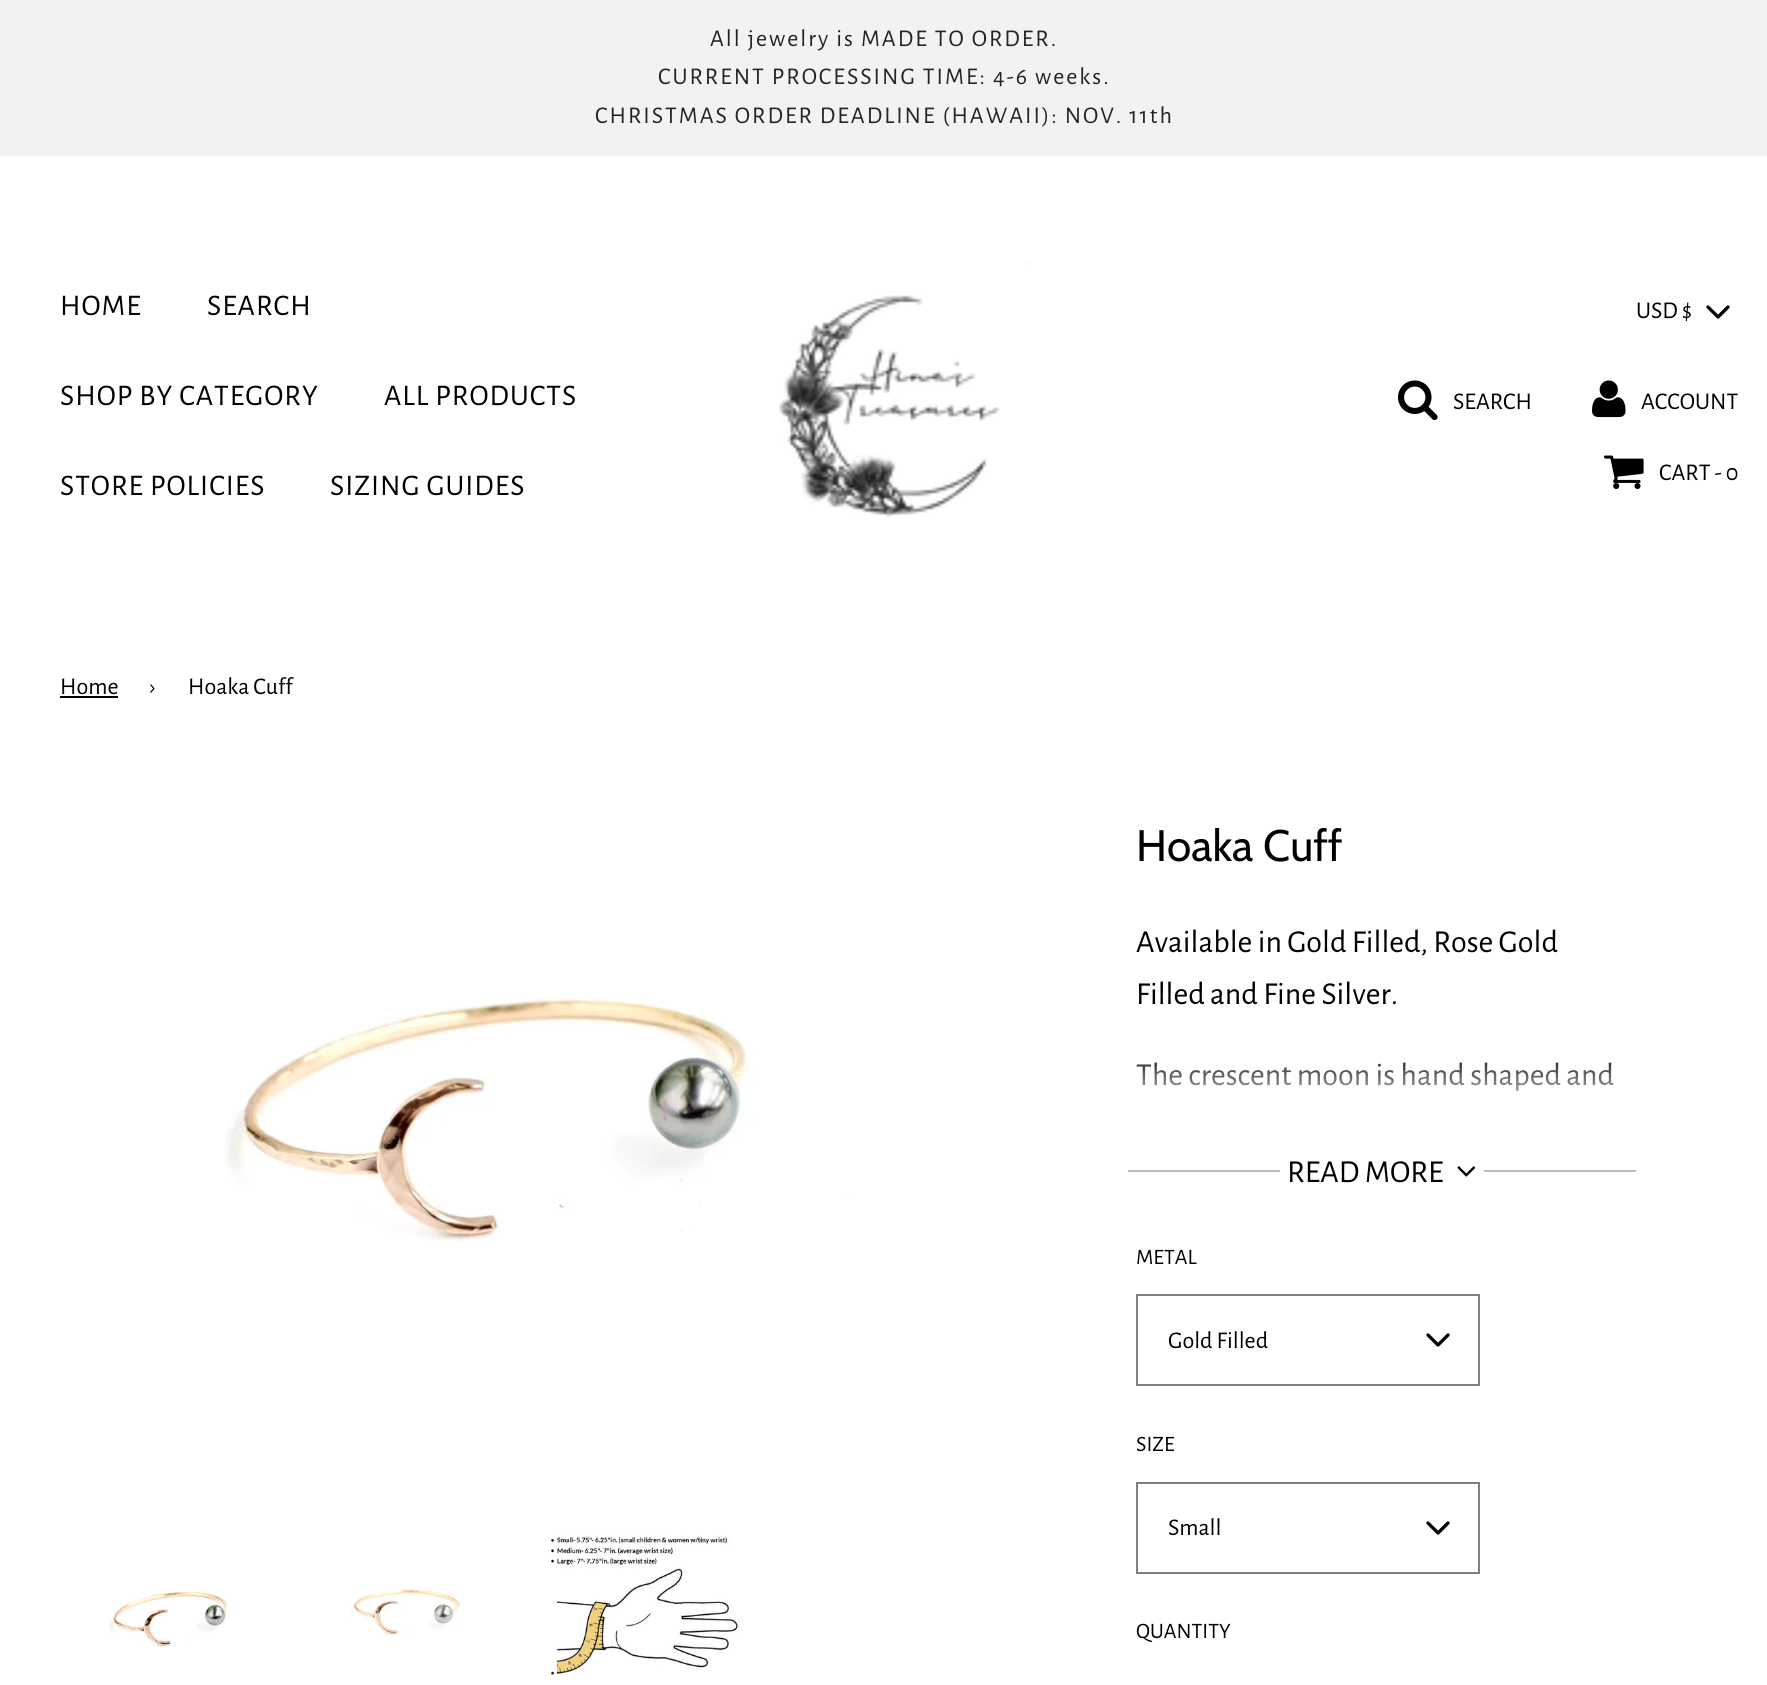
#include <cairo.h>
#include <math.h>
#include <stddef.h>


static void set_color(cairo_t *cr, unsigned color) {
    cairo_set_source_rgb(cr, (color >> 16) / 255.0, (color >> 8 & 255) / 255.0, (color & 255) / 255.0);
}

static void draw_text(cairo_t *cr, double x, double y, const char *s, const char *family, double size, int italic, int bold, unsigned color) {
    cairo_select_font_face(cr, family, italic ? CAIRO_FONT_SLANT_ITALIC : CAIRO_FONT_SLANT_NORMAL,
        bold ? CAIRO_FONT_WEIGHT_BOLD : CAIRO_FONT_WEIGHT_NORMAL);
    cairo_set_font_size(cr, size);
    set_color(cr, color);
    cairo_move_to(cr, x, y);
    cairo_show_text(cr, s);
}

static void draw_spaced(cairo_t *cr, double x, double y, const char *s, double letter, double word) {
    cairo_move_to(cr, x, y);
    while (*s) {
        char ch[5] = {0};
        int n = 0;
        do ch[n++] = *s++; while ((*s & 0xC0) == 0x80);
        cairo_show_text(cr, ch);
        cairo_rel_move_to(cr, letter + word * (*ch == ' '), 0);
    }
}

static void fill_rect(cairo_t *cr, double x, double y, double w, double h, unsigned color) {
    set_color(cr, color);
    cairo_rectangle(cr, x, y, w, h);
    cairo_fill(cr);
}

static void draw_image(cairo_t *cr, const char *path, double x, double y, double w, double h) {
    cairo_surface_t *image = cairo_image_surface_create_from_png(path);
    cairo_save(cr);
    cairo_set_source_surface(cr, image, x, y);
    cairo_rectangle(cr, x, y, w, h);
    cairo_fill(cr);
    cairo_restore(cr);
    cairo_surface_destroy(image);
}

int main(void) {
    cairo_surface_t *surface = cairo_image_surface_create(CAIRO_FORMAT_RGB24, 1767, 1685);
    cairo_t *cr = cairo_create(surface);
    cairo_font_options_t *options = cairo_font_options_create();
    cairo_font_options_set_hint_metrics(options, CAIRO_HINT_METRICS_OFF);
    cairo_font_options_set_hint_style(options, CAIRO_HINT_STYLE_NONE);
    cairo_set_font_options(cr, options);
    cairo_set_miter_limit(cr, 4);
    cairo_pattern_t *gradient;
    set_color(cr, 0xFFFFFF);
    cairo_paint(cr);
    fill_rect(cr, 0, 0, 1767, 156, 0xF1F2F3);
    cairo_select_font_face(cr, "Alegreya Sans", CAIRO_FONT_SLANT_NORMAL, CAIRO_FONT_WEIGHT_NORMAL);
    cairo_set_font_size(cr, 24);
    set_color(cr, 0x242424);
    draw_spaced(cr, 710, 46, "All jewelry is MADE TO ORDER.", 2, 0);
    draw_spaced(cr, 658, 84, "CURRENT PROCESSING TIME: 4-6 weeks.", 2, 0);
    draw_spaced(cr, 595, 123, "CHRISTMAS ORDER DEADLINE (HAWAII): NOV. 11th", 2, 0);
    cairo_set_font_size(cr, 30);
    set_color(cr, 0x000000);
    draw_spaced(cr, 60, 315, "HOME", 1, 0);
    draw_spaced(cr, 207, 315, "SEARCH", 1, 0);
    draw_spaced(cr, 60, 405, "SHOP BY CATEGORY", 1, 0);
    draw_spaced(cr, 384, 405, "ALL PRODUCTS", 1, 0);
    draw_spaced(cr, 60, 495, "STORE POLICIES", 1, 0);
    draw_spaced(cr, 330, 495, "SIZING GUIDES", 1, 0);
    draw_image(cr, "assets/img1.png", 779, 261, 252, 257);
    draw_text(cr, 1636, 318, "USD $", "Alegreya Sans", 24, 0, 0, 0x000000);
    cairo_new_path(cr);
    cairo_move_to(cr, 1708, 307);
    cairo_line_to(cr, 1718, 317);
    cairo_line_to(cr, 1728, 307);
    cairo_set_line_width(cr, 3.3);
    cairo_set_line_cap(cr, CAIRO_LINE_CAP_ROUND);
    cairo_set_line_join(cr, CAIRO_LINE_JOIN_ROUND);
    cairo_stroke(cr);
    draw_image(cr, "assets/img2.png", 1398, 380, 40, 41);
    draw_text(cr, 1453, 409, "SEARCH", "Alegreya Sans", 24, 0, 0, 0x000000);
    draw_image(cr, "assets/img3.png", 1592, 380, 34, 38);
    draw_text(cr, 1641, 409, "ACCOUNT", "Alegreya Sans", 24, 0, 0, 0x000000);
    draw_image(cr, "assets/img4.png", 1604, 455, 40, 34);
    draw_text(cr, 1659, 480, "CART - 0", "Alegreya Sans", 24, 0, 0, 0x000000);
    draw_text(cr, 60, 694, "Home", "Alegreya Sans", 24, 0, 0, 0x000000);
    fill_rect(cr, 60, 696, 58, 2, 0x000000);
    draw_text(cr, 150, 694, "›", "Alegreya Sans", 24, 0, 0, 0x000000);
    draw_text(cr, 188, 694, "Hoaka Cuff", "Alegreya Sans", 24, 0, 0, 0x000000);
    draw_image(cr, "assets/img5.png", 224, 993, 625, 248);
    draw_image(cr, "assets/img6.png", 109, 1591, 119, 56);
    draw_image(cr, "assets/img7.png", 350, 1589, 111, 47);
    draw_image(cr, "assets/img8.png", 551, 1534, 187, 142);
    draw_text(cr, 1136, 861, "Hoaka Cuff", "Cabin", 44, 0, 0, 0x000000);
    draw_text(cr, 1136, 952, "Available in Gold Filled, Rose Gold", "Alegreya Sans", 32, 0, 0, 0x000000);
    draw_text(cr, 1136, 1004, "Filled and Fine Silver.", "Alegreya Sans", 32, 0, 0, 0x000000);
    draw_text(cr, 1136, 1085, "The crescent moon is hand shaped and", "Alegreya Sans", 32, 0, 0, 0x000000);
    gradient = cairo_pattern_create_linear(1382, 918, 1382, 1118);
    cairo_pattern_add_color_stop_rgba(gradient, 0.65, 1, 1, 1, 0);
    cairo_pattern_add_color_stop_rgba(gradient, 1, 1, 1, 1, 1);
    cairo_set_source(cr, gradient);
    cairo_pattern_destroy(gradient);
    cairo_rectangle(cr, 1137, 1062, 477, 29);
    cairo_fill(cr);
    fill_rect(cr, 1128, 1170, 152, 2, 0xBCBCBC);
    draw_text(cr, 1287, 1182, "READ MORE", "Alegreya Sans", 32, 0, 0, 0x000000);
    draw_image(cr, "assets/img9.png", 1457, 1166, 19, 11);
    fill_rect(cr, 1484, 1170, 152, 2, 0xBCBCBC);
    draw_text(cr, 1136, 1264, "METAL", "Alegreya Sans", 22, 0, 0, 0x000000);
    cairo_rectangle(cr, 1137, 1295, 342, 90);
    set_color(cr, 0x808080);
    cairo_set_line_width(cr, 2);
    cairo_set_line_cap(cr, CAIRO_LINE_CAP_BUTT);
    cairo_set_line_join(cr, CAIRO_LINE_JOIN_MITER);
    cairo_stroke(cr);
    draw_text(cr, 1168, 1348, "Gold Filled", "Alegreya Sans", 24, 0, 0, 0x000000);
    cairo_new_path(cr);
    cairo_move_to(cr, 1428, 1335);
    cairo_line_to(cr, 1438, 1345);
    cairo_line_to(cr, 1448, 1335);
    cairo_set_line_width(cr, 3.3);
    cairo_set_line_cap(cr, CAIRO_LINE_CAP_ROUND);
    cairo_set_line_join(cr, CAIRO_LINE_JOIN_ROUND);
    cairo_stroke(cr);
    draw_text(cr, 1136, 1451, "SIZE", "Alegreya Sans", 22, 0, 0, 0x000000);
    cairo_rectangle(cr, 1137, 1483, 342, 90);
    set_color(cr, 0x808080);
    cairo_set_line_width(cr, 2);
    cairo_set_line_cap(cr, CAIRO_LINE_CAP_BUTT);
    cairo_set_line_join(cr, CAIRO_LINE_JOIN_MITER);
    cairo_stroke(cr);
    draw_text(cr, 1168, 1535, "Small", "Alegreya Sans", 24, 0, 0, 0x000000);
    cairo_new_path(cr);
    cairo_move_to(cr, 1428, 1523);
    cairo_line_to(cr, 1438, 1533);
    cairo_line_to(cr, 1448, 1523);
    cairo_set_line_width(cr, 3.3);
    cairo_set_line_cap(cr, CAIRO_LINE_CAP_ROUND);
    cairo_set_line_join(cr, CAIRO_LINE_JOIN_ROUND);
    cairo_stroke(cr);
    draw_text(cr, 1136, 1638, "QUANTITY", "Alegreya Sans", 22, 0, 0, 0x000000);
    cairo_surface_write_to_png(surface, "output.png");
    cairo_font_options_destroy(options);
    cairo_destroy(cr);
    cairo_surface_destroy(surface);
    return 0;
}
